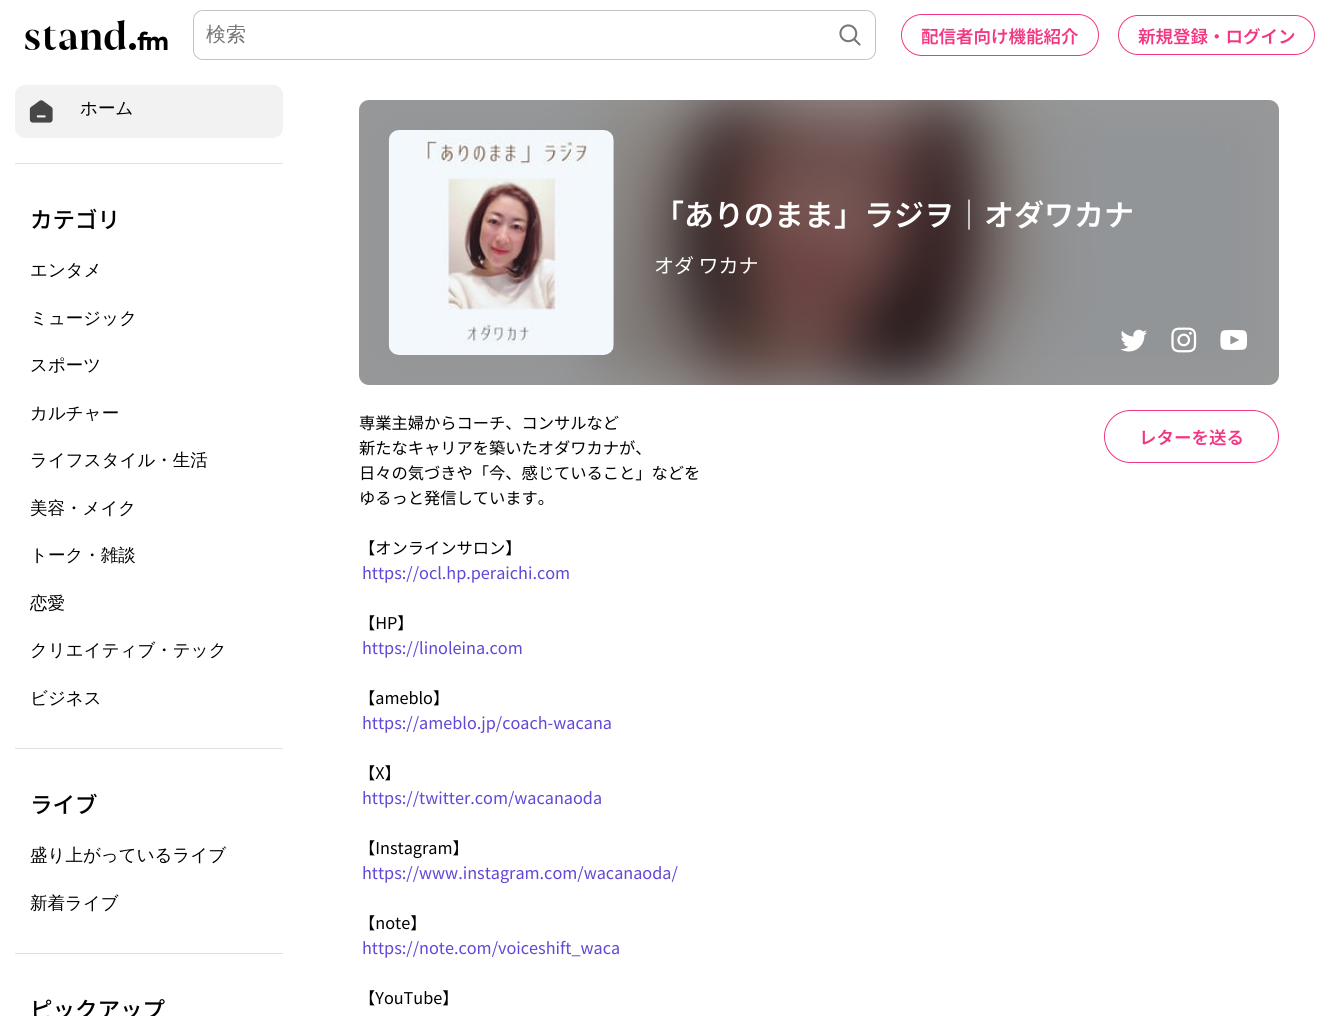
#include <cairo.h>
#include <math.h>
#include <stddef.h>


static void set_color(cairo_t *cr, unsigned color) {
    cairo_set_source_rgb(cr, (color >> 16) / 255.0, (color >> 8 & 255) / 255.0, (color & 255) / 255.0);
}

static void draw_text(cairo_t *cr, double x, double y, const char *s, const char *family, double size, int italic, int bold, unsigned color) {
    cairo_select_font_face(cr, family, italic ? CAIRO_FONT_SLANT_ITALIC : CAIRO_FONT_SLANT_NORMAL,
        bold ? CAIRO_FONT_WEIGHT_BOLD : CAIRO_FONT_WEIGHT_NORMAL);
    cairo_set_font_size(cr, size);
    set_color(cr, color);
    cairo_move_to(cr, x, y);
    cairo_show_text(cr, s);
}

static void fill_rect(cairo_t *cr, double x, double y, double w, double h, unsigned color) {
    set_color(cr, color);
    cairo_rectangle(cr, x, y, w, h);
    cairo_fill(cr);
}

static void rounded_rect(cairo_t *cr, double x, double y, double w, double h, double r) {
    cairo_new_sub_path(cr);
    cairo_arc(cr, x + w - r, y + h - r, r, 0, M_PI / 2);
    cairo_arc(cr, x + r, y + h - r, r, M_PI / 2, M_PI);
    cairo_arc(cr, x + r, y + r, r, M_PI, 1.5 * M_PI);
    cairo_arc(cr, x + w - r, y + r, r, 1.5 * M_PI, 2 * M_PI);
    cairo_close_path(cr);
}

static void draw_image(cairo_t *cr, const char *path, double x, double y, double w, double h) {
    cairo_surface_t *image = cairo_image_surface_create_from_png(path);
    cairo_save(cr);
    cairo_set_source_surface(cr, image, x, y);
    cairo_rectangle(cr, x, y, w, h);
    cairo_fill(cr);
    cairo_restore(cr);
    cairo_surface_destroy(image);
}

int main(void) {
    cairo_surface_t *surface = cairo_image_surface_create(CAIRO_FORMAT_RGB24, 1339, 1016);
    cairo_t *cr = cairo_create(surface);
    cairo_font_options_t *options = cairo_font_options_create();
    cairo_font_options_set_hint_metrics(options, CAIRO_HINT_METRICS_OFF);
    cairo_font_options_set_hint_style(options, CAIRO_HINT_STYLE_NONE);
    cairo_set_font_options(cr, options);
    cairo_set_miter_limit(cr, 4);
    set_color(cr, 0xFFFFFF);
    cairo_paint(cr);
    draw_image(cr, "assets/img1.png", 25, 20, 143, 30);
    rounded_rect(cr, 193.5, 10.5, 682, 49, 9.5);
    set_color(cr, 0xC3C3C3);
    cairo_set_line_width(cr, 1);
    cairo_stroke(cr);
    set_color(cr, 0xFFFFFF);
    rounded_rect(cr, 194, 11, 681, 48, 10);
    cairo_fill(cr);
    draw_text(cr, 206, 41, "検索", "WenQuanYi Zen Hei Medium", 20, 0, 0, 0x757575);
    draw_image(cr, "assets/img2.png", 839, 24, 22, 22);
    rounded_rect(cr, 901.5, 14.5, 197, 41, 20.5);
    set_color(cr, 0xF33682);
    cairo_stroke(cr);
    draw_text(cr, 921, 43, "配信者向け機能紹介", "Noto Sans JP SemiBold", 17.5, 0, 0, 0xF33682);
    rounded_rect(cr, 1118.5, 15.5, 196, 39, 19.5);
    cairo_stroke(cr);
    draw_text(cr, 1138, 43, "新規登録・ログイン", "Noto Sans JP SemiBold", 17.5, 0, 0, 0xF33682);
    set_color(cr, 0xF2F2F2);
    rounded_rect(cr, 15, 85, 268, 53, 10);
    cairo_fill(cr);
    draw_image(cr, "assets/img3.png", 29, 100, 24, 23);
    draw_text(cr, 80, 114, "ホーム", "WenQuanYi Zen Hei Medium", 17.5, 0, 0, 0x000000);
    fill_rect(cr, 15, 163, 268, 1, 0xE0E0E0);
    draw_text(cr, 30, 228, "カテゴリ", "Noto Sans JP Medium", 22.5, 0, 0, 0x000000);
    draw_text(cr, 30, 276, "エンタメ", "WenQuanYi Zen Hei Medium", 17.5, 0, 0, 0x000000);
    draw_text(cr, 30, 324, "ミュージック", "WenQuanYi Zen Hei Medium", 17.5, 0, 0, 0x000000);
    draw_text(cr, 30, 371, "スポーツ", "WenQuanYi Zen Hei Medium", 17.5, 0, 0, 0x000000);
    draw_text(cr, 30, 419, "カルチャー", "WenQuanYi Zen Hei Medium", 17.5, 0, 0, 0x000000);
    draw_text(cr, 30, 466, "ライフスタイル・生活", "WenQuanYi Zen Hei Medium", 17.5, 0, 0, 0x000000);
    draw_text(cr, 30, 514, "美容・メイク", "WenQuanYi Zen Hei Medium", 17.5, 0, 0, 0x000000);
    draw_text(cr, 30, 561, "トーク・雑談", "WenQuanYi Zen Hei Medium", 17.5, 0, 0, 0x000000);
    draw_text(cr, 30, 609, "恋愛", "WenQuanYi Zen Hei Medium", 17.5, 0, 0, 0x000000);
    draw_text(cr, 30, 656, "クリエイティブ・テック", "WenQuanYi Zen Hei Medium", 17.5, 0, 0, 0x000000);
    draw_text(cr, 30, 704, "ビジネス", "WenQuanYi Zen Hei Medium", 17.5, 0, 0, 0x000000);
    fill_rect(cr, 15, 748, 268, 1, 0xE0E0E0);
    draw_text(cr, 30, 813, "ライブ", "Noto Sans JP Medium", 22.5, 0, 0, 0x000000);
    draw_text(cr, 30, 861, "盛り上がっているライブ", "WenQuanYi Zen Hei Medium", 17.5, 0, 0, 0x000000);
    draw_text(cr, 30, 909, "新着ライブ", "WenQuanYi Zen Hei Medium", 17.5, 0, 0, 0x000000);
    fill_rect(cr, 15, 953, 268, 1, 0xE0E0E0);
    draw_text(cr, 30, 1018, "ピックアップ", "Noto Sans JP Medium", 22.5, 0, 0, 0x000000);
    draw_image(cr, "assets/img4.png", 359, 100, 920, 285);
    cairo_set_source_rgba(cr, 0, 0, 0, 0.4);
    rounded_rect(cr, 359, 100, 920, 285, 10);
    cairo_fill(cr);
    draw_image(cr, "assets/img5.png", 388, 130, 226, 225);
    draw_text(cr, 654, 226, "「ありのまま」ラジヲ｜オダワカナ", "Noto Sans JP SemiBold", 30, 0, 0, 0xFFFFFF);
    draw_text(cr, 654, 273, "オダ ワカナ", "Noto Sans JP", 20, 0, 0, 0xFFFFFF);
    draw_image(cr, "assets/img6.png", 1120, 329, 27, 23);
    draw_image(cr, "assets/img7.png", 1171, 327, 26, 26);
    draw_image(cr, "assets/img8.png", 1220, 329, 28, 21);
    draw_text(cr, 359, 429, "専業主婦からコーチ、コンサルなど", "Noto Sans JP", 16.25, 0, 0, 0x000000);
    draw_text(cr, 359, 454, "新たなキャリアを築いたオダワカナが、", "Noto Sans JP", 16.25, 0, 0, 0x000000);
    draw_text(cr, 359, 479, "日々の気づきや「今、感じていること」などを", "Noto Sans JP", 16.25, 0, 0, 0x000000);
    draw_text(cr, 359, 504, "ゆるっと発信しています。", "Noto Sans JP", 16.25, 0, 0, 0x000000);
    draw_text(cr, 359, 554, "【オンラインサロン】", "Noto Sans JP", 16.25, 0, 0, 0x000000);
    draw_text(cr, 362, 579, "https://ocl.hp.peraichi.com", "Noto Sans JP", 16.25, 0, 0, 0x6346D7);
    draw_text(cr, 359, 629, "【HP】", "Noto Sans JP", 16.25, 0, 0, 0x000000);
    draw_text(cr, 362, 654, "https://linoleina.com", "Noto Sans JP", 16.25, 0, 0, 0x6346D7);
    draw_text(cr, 359, 704, "【ameblo】", "Noto Sans JP", 16.25, 0, 0, 0x000000);
    draw_text(cr, 362, 729, "https://ameblo.jp/coach-wacana", "Noto Sans JP", 16.25, 0, 0, 0x6346D7);
    draw_text(cr, 359, 779, "【X】", "Noto Sans JP", 16.25, 0, 0, 0x000000);
    draw_text(cr, 362, 804, "https://twitter.com/wacanaoda", "Noto Sans JP", 16.25, 0, 0, 0x6346D7);
    draw_text(cr, 359, 854, "【Instagram】", "Noto Sans JP", 16.25, 0, 0, 0x000000);
    draw_text(cr, 362, 879, "https://www.instagram.com/wacanaoda/", "Noto Sans JP", 16.25, 0, 0, 0x6346D7);
    draw_text(cr, 359, 929, "【note】", "Noto Sans JP", 16.25, 0, 0, 0x000000);
    draw_text(cr, 362, 954, "https://note.com/voiceshift_waca", "Noto Sans JP", 16.25, 0, 0, 0x6346D7);
    draw_text(cr, 359, 1004, "【YouTube】", "Noto Sans JP", 16.25, 0, 0, 0x000000);
    rounded_rect(cr, 1104.5, 410.5, 174, 52, 26);
    set_color(cr, 0xF33682);
    cairo_stroke(cr);
    draw_text(cr, 1139, 444, "レターを送る", "Noto Sans JP SemiBold", 17.5, 0, 0, 0xF33682);
    cairo_surface_write_to_png(surface, "output.png");
    cairo_font_options_destroy(options);
    cairo_destroy(cr);
    cairo_surface_destroy(surface);
    return 0;
}
